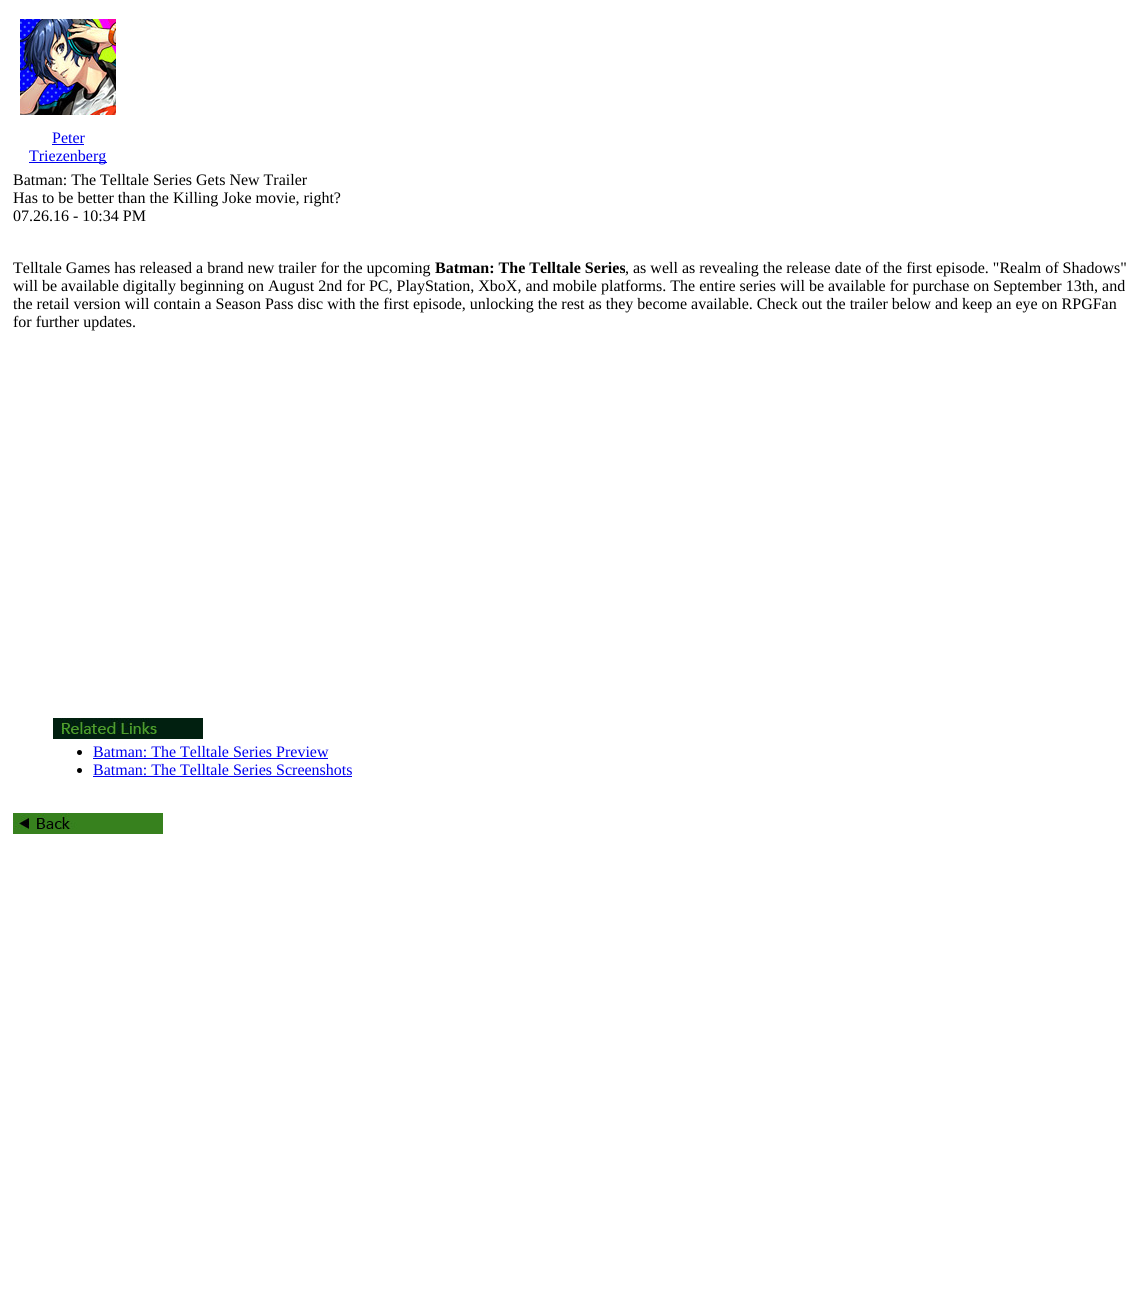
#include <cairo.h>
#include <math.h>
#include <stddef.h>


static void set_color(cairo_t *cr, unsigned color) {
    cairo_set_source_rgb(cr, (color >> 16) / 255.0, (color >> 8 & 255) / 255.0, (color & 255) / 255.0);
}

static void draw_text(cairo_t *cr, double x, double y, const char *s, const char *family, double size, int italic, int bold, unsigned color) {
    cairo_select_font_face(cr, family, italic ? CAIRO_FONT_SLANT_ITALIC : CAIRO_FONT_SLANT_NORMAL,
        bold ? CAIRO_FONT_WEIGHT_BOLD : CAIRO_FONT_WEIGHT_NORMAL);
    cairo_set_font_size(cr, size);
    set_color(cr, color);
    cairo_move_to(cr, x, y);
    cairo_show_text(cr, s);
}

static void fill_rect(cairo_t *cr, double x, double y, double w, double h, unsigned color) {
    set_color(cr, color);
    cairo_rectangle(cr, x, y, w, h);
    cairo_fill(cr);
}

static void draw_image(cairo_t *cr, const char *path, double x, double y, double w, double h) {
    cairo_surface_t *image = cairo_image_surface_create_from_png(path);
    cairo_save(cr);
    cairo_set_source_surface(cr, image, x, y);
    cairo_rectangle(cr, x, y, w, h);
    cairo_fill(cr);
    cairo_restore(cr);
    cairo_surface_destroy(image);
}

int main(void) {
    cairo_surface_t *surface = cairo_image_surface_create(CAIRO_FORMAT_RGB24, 1142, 1295);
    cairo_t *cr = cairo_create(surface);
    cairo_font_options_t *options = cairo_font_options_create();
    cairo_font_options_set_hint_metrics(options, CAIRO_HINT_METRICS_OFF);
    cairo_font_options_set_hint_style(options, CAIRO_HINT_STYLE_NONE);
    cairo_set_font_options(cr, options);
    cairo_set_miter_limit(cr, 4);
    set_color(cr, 0xFFFFFF);
    cairo_paint(cr);
    draw_image(cr, "assets/img1.png", 20, 19, 96, 96);
    draw_text(cr, 52, 143, "Peter", "Liberation Serif", 16, 0, 0, 0x0000EE);
    fill_rect(cr, 52, 144, 32, 1, 0x0000EE);
    fill_rect(cr, 29, 162, 78, 1, 0x0000EE);
    draw_text(cr, 29, 161, "Triezenberg", "Liberation Serif", 16, 0, 0, 0x0000EE);
    draw_text(cr, 13, 185, "Batman: The Telltale Series Gets New Trailer", "Liberation Serif", 16, 0, 0, 0x000000);
    draw_text(cr, 13, 203, "Has to be better than the Killing Joke movie, right?", "Liberation Serif", 16, 0, 0, 0x000000);
    draw_text(cr, 13, 221, "07.26.16 - 10:34 PM", "Liberation Serif", 16, 0, 0, 0x000000);
    draw_text(cr, 13, 273, "Telltale Games has released a brand new trailer for the upcoming", "Liberation Serif", 16, 0, 0, 0x000000);
    draw_text(cr, 435, 273, "Batman: The Telltale Series", "Liberation Serif", 16, 0, 1, 0x000000);
    draw_text(cr, 625, 273, ", as well as revealing the release date of the first episode. \"Realm of Shadows\"", "Liberation Serif", 16, 0, 0, 0x000000);
    draw_text(cr, 13, 291, "will be available digitally beginning on August 2nd for PC, PlayStation, XboX, and mobile platforms. The entire series will be available for purchase on September 13th, and", "Liberation Serif", 16, 0, 0, 0x000000);
    draw_text(cr, 13, 309, "the retail version will contain a Season Pass disc with the first episode, unlocking the rest as they become available. Check out the trailer below and keep an eye on RPGFan", "Liberation Serif", 16, 0, 0, 0x000000);
    draw_text(cr, 13, 327, "for further updates.", "Liberation Serif", 16, 0, 0, 0x000000);
    draw_image(cr, "assets/img2.png", 53, 718, 150, 21);
    cairo_arc(cr, 79.5, 752.5, 2.5, 0, 2 * M_PI);
    cairo_fill(cr);
    draw_text(cr, 93, 757, "Batman: The Telltale Series Preview", "Liberation Serif", 16, 0, 0, 0x0000EE);
    fill_rect(cr, 93, 758, 235, 1, 0x0000EE);
    set_color(cr, 0x000000);
    cairo_new_path(cr);
    cairo_arc(cr, 79.5, 770.5, 2.5, 0, 2 * M_PI);
    cairo_fill(cr);
    draw_text(cr, 93, 775, "Batman: The Telltale Series Screenshots", "Liberation Serif", 16, 0, 0, 0x0000EE);
    fill_rect(cr, 93, 776, 259, 1, 0x0000EE);
    draw_image(cr, "assets/img3.png", 13, 813, 150, 21);
    cairo_surface_write_to_png(surface, "output.png");
    cairo_font_options_destroy(options);
    cairo_destroy(cr);
    cairo_surface_destroy(surface);
    return 0;
}
